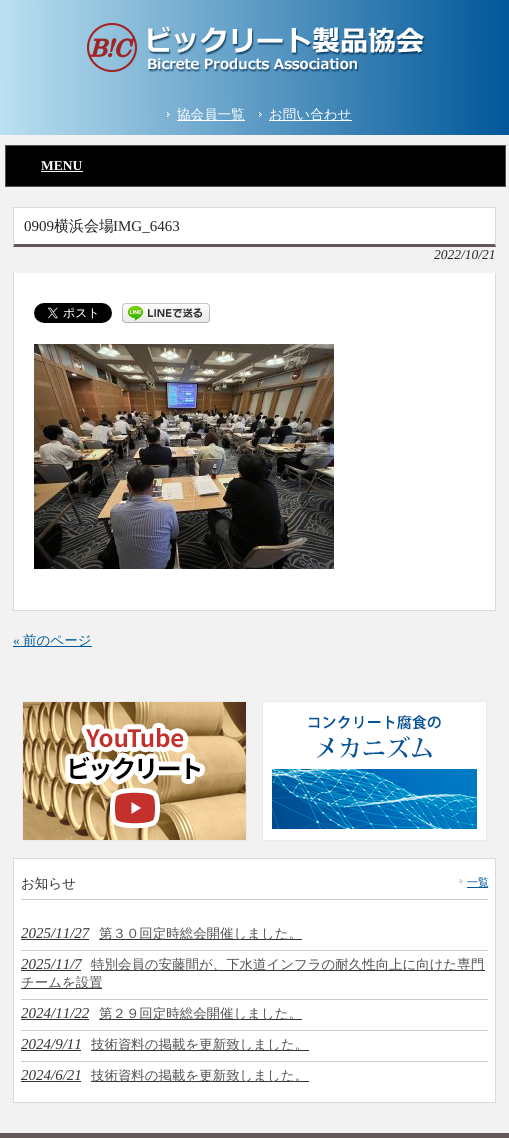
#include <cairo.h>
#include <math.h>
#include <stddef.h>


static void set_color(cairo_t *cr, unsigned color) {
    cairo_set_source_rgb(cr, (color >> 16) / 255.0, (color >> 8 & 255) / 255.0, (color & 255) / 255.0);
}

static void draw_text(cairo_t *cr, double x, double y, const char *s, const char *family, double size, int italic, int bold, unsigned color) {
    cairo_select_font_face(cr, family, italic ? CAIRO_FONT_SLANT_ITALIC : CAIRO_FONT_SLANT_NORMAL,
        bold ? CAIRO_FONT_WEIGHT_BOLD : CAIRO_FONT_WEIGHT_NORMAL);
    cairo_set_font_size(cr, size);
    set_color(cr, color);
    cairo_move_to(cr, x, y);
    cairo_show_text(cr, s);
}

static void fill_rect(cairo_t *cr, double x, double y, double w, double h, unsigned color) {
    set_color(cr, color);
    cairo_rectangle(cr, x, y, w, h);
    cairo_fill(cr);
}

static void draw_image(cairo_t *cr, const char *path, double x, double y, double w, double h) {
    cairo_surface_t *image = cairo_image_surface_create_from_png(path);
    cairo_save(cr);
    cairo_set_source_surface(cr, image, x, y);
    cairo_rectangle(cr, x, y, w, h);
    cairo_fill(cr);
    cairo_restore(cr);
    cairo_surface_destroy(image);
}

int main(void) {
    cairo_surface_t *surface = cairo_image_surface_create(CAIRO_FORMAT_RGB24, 509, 1138);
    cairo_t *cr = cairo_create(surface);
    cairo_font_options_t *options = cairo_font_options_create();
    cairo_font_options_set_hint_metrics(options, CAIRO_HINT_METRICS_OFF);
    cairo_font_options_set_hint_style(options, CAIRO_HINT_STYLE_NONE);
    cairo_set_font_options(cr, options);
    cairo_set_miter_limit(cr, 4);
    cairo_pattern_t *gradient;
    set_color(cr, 0xF2F2F2);
    cairo_paint(cr);
    gradient = cairo_pattern_create_linear(0, 68, 509, 67);
    cairo_pattern_add_color_stop_rgba(gradient, 0, 0.733, 0.878, 0.945, 1);
    cairo_pattern_add_color_stop_rgba(gradient, 1, 0, 0.341, 0.6, 1);
    cairo_set_source(cr, gradient);
    cairo_pattern_destroy(gradient);
    cairo_rectangle(cr, 0, 0, 509, 135);
    cairo_fill(cr);
    draw_image(cr, "assets/img1.png", 87, 23, 339, 50);
    draw_image(cr, "assets/img2.png", 167, 112, 3, 5);
    fill_rect(cr, 177, 120, 68, 1, 0xFFFFFF);
    draw_text(cr, 177, 119, "協会員一覧", "WenQuanYi Zen Hei Medium", 13.5, 0, 0, 0xFFFFFF);
    draw_image(cr, "assets/img3.png", 259, 112, 3, 5);
    fill_rect(cr, 269, 120, 83, 1, 0xFFFFFF);
    draw_text(cr, 269, 119, "お問い合わせ", "WenQuanYi Zen Hei Medium", 13.5, 0, 0, 0xFFFFFF);
    set_color(cr, 0x000000);
    cairo_rectangle(cr, 5.5, 145.5, 500, 41);
    cairo_fill_preserve(cr);
    set_color(cr, 0x515151);
    cairo_set_line_width(cr, 1);
    cairo_stroke(cr);
    draw_text(cr, 41, 170, "MENU", "Liberation Serif", 13.5, 0, 1, 0xFFFFFF);
    fill_rect(cr, 41, 171, 42, 1, 0xFFFFFF);
    fill_rect(cr, 14, 208, 481, 36, 0xFFFFFF);
    fill_rect(cr, 13, 207, 483, 1, 0xDADADA);
    cairo_new_path(cr);
    cairo_move_to(cr, 496, 207);
    cairo_line_to(cr, 496, 247);
    cairo_line_to(cr, 495, 244);
    cairo_line_to(cr, 495, 208);
    cairo_close_path(cr);
    cairo_fill(cr);
    set_color(cr, 0x625958);
    cairo_new_path(cr);
    cairo_move_to(cr, 496, 247);
    cairo_line_to(cr, 13, 247);
    cairo_line_to(cr, 14, 244);
    cairo_line_to(cr, 495, 244);
    cairo_close_path(cr);
    cairo_fill(cr);
    set_color(cr, 0xDADADA);
    cairo_new_path(cr);
    cairo_move_to(cr, 13, 247);
    cairo_line_to(cr, 13, 207);
    cairo_line_to(cr, 14, 208);
    cairo_line_to(cr, 14, 244);
    cairo_close_path(cr);
    cairo_fill(cr);
    draw_text(cr, 24, 231, "0909", "Liberation Serif", 15, 0, 0, 0x252525);
    draw_text(cr, 54, 231, "横浜会場", "WenQuanYi Zen Hei Medium", 15, 0, 0, 0x252525);
    draw_text(cr, 113, 231, "IMG_6463", "Liberation Serif", 15, 0, 0, 0x252525);
    draw_text(cr, 434, 259, "2022/10/21", "Liberation Serif", 13.5, 1, 0, 0x252525);
    fill_rect(cr, 14, 273, 481, 337, 0xFFFFFF);
    fill_rect(cr, 495, 273, 1, 338, 0xDADADA);
    fill_rect(cr, 13, 610, 483, 1, 0xDADADA);
    fill_rect(cr, 13, 273, 1, 338, 0xDADADA);
    draw_image(cr, "assets/img4.png", 34, 303, 78, 20);
    draw_image(cr, "assets/img5.png", 122, 303, 88, 20);
    draw_image(cr, "assets/img6.png", 34, 344, 300, 225);
    draw_text(cr, 13, 645, "«", "Liberation Serif", 13.5, 0, 0, 0x005799);
    fill_rect(cr, 13, 646, 79, 1, 0x005799);
    draw_text(cr, 23, 645, "前のページ", "WenQuanYi Zen Hei Medium", 13.5, 0, 0, 0x005799);
    draw_image(cr, "assets/img7.png", 22, 701, 225, 140);
    draw_image(cr, "assets/img8.png", 262, 701, 225, 140);
    set_color(cr, 0xFFFFFF);
    cairo_rectangle(cr, 13.5, 858.5, 482, 244);
    cairo_fill_preserve(cr);
    set_color(cr, 0xDADADA);
    cairo_stroke(cr);
    fill_rect(cr, 21, 899, 467, 1, 0xCCCCCC);
    draw_text(cr, 21, 888, "お知らせ", "WenQuanYi Zen Hei Medium", 13.5, 0, 0, 0x333333);
    draw_image(cr, "assets/img9.png", 459, 879, 4, 5);
    fill_rect(cr, 467, 887, 21, 1, 0x005799);
    draw_text(cr, 467, 886, "一覧", "WenQuanYi Zen Hei Medium", 11, 0, 0, 0x005799);
    fill_rect(cr, 21, 950, 467, 1, 0xCCCCCC);
    draw_text(cr, 21, 938, "2025/11/27", "Liberation Serif", 15, 1, 0, 0x333333);
    fill_rect(cr, 21, 939, 68, 1, 0x333333);
    fill_rect(cr, 99, 939, 203, 1, 0x333333);
    draw_text(cr, 99, 938, "第３０回定時総会開催しました。", "WenQuanYi Zen Hei Medium", 13.45, 0, 0, 0x515151);
    fill_rect(cr, 21, 999, 467, 1, 0xCCCCCC);
    draw_text(cr, 21, 969, "2025/11/7", "Liberation Serif", 15, 1, 0, 0x333333);
    fill_rect(cr, 21, 970, 60, 1, 0x333333);
    fill_rect(cr, 91, 970, 394, 1, 0x333333);
    draw_text(cr, 91, 969, "特別会員の安藤間が、下水道インフラの耐久性向上に向けた専門", "WenQuanYi Zen Hei Medium", 13.45, 0, 0, 0x515151);
    fill_rect(cr, 21, 988, 81, 1, 0x333333);
    draw_text(cr, 21, 987, "チームを設置", "WenQuanYi Zen Hei Medium", 13.45, 0, 0, 0x515151);
    fill_rect(cr, 21, 1030, 467, 1, 0xCCCCCC);
    draw_text(cr, 21, 1018, "2024/11/22", "Liberation Serif", 15, 1, 0, 0x333333);
    fill_rect(cr, 21, 1019, 68, 1, 0x333333);
    fill_rect(cr, 99, 1019, 203, 1, 0x333333);
    draw_text(cr, 99, 1018, "第２９回定時総会開催しました。", "WenQuanYi Zen Hei Medium", 13.45, 0, 0, 0x515151);
    fill_rect(cr, 21, 1061, 467, 1, 0xCCCCCC);
    draw_text(cr, 21, 1049, "2024/9/11", "Liberation Serif", 15, 1, 0, 0x333333);
    fill_rect(cr, 21, 1050, 60, 1, 0x333333);
    fill_rect(cr, 91, 1050, 218, 1, 0x333333);
    draw_text(cr, 91, 1049, "技術資料の掲載を更新致しました。", "WenQuanYi Zen Hei Medium", 13.45, 0, 0, 0x515151);
    draw_text(cr, 21, 1080, "2024/6/21", "Liberation Serif", 15, 1, 0, 0x333333);
    fill_rect(cr, 21, 1081, 60, 1, 0x333333);
    fill_rect(cr, 91, 1081, 218, 1, 0x333333);
    draw_text(cr, 91, 1080, "技術資料の掲載を更新致しました。", "WenQuanYi Zen Hei Medium", 13.45, 0, 0, 0x515151);
    fill_rect(cr, 0, 1133, 509, 5, 0x625958);
    cairo_surface_write_to_png(surface, "output.png");
    cairo_font_options_destroy(options);
    cairo_destroy(cr);
    cairo_surface_destroy(surface);
    return 0;
}
